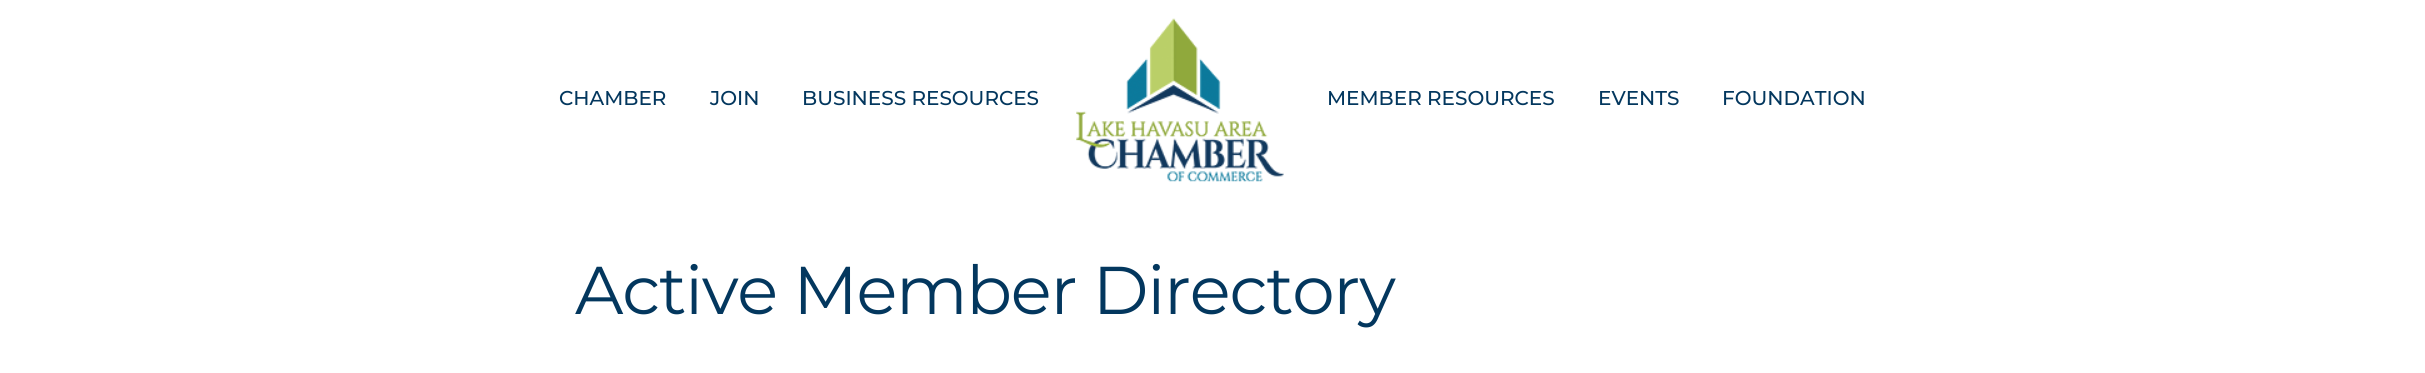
#include <cairo.h>
#include <math.h>
#include <stddef.h>


static void set_color(cairo_t *cr, unsigned color) {
    cairo_set_source_rgb(cr, (color >> 16) / 255.0, (color >> 8 & 255) / 255.0, (color & 255) / 255.0);
}

static void draw_text(cairo_t *cr, double x, double y, const char *s, const char *family, double size, int italic, int bold, unsigned color) {
    cairo_select_font_face(cr, family, italic ? CAIRO_FONT_SLANT_ITALIC : CAIRO_FONT_SLANT_NORMAL,
        bold ? CAIRO_FONT_WEIGHT_BOLD : CAIRO_FONT_WEIGHT_NORMAL);
    cairo_set_font_size(cr, size);
    set_color(cr, color);
    cairo_move_to(cr, x, y);
    cairo_show_text(cr, s);
}

static void draw_spaced(cairo_t *cr, double x, double y, const char *s, double letter, double word) {
    cairo_move_to(cr, x, y);
    while (*s) {
        char ch[5] = {0};
        int n = 0;
        do ch[n++] = *s++; while ((*s & 0xC0) == 0x80);
        cairo_show_text(cr, ch);
        cairo_rel_move_to(cr, letter + word * (*ch == ' '), 0);
    }
}

static void draw_image(cairo_t *cr, const char *path, double x, double y, double w, double h) {
    cairo_surface_t *image = cairo_image_surface_create_from_png(path);
    cairo_save(cr);
    cairo_set_source_surface(cr, image, x, y);
    cairo_rectangle(cr, x, y, w, h);
    cairo_fill(cr);
    cairo_restore(cr);
    cairo_surface_destroy(image);
}

int main(void) {
    cairo_surface_t *surface = cairo_image_surface_create(CAIRO_FORMAT_RGB24, 2425, 373);
    cairo_t *cr = cairo_create(surface);
    cairo_font_options_t *options = cairo_font_options_create();
    cairo_font_options_set_hint_metrics(options, CAIRO_HINT_METRICS_OFF);
    cairo_font_options_set_hint_style(options, CAIRO_HINT_STYLE_NONE);
    cairo_set_font_options(cr, options);
    cairo_set_miter_limit(cr, 4);
    set_color(cr, 0xFFFFFF);
    cairo_paint(cr);
    draw_text(cr, 559, 105, "CHAMBER", "Montserrat Medium", 20, 0, 0, 0x03375E);
    draw_text(cr, 710, 105, "JOIN", "Montserrat Medium", 20, 0, 0, 0x03375E);
    draw_text(cr, 802, 105, "BUSINESS RESOURCES", "Montserrat Medium", 20, 0, 0, 0x03375E);
    draw_image(cr, "assets/img1.png", 1076, 18, 208, 164);
    draw_text(cr, 1327, 105, "MEMBER RESOURCES", "Montserrat Medium", 20, 0, 0, 0x03375E);
    draw_text(cr, 1598, 105, "EVENTS", "Montserrat Medium", 20, 0, 0, 0x03375E);
    draw_text(cr, 1722, 105, "FOUNDATION", "Montserrat Medium", 20, 0, 0, 0x03375E);
    cairo_select_font_face(cr, "Montserrat", CAIRO_FONT_SLANT_NORMAL, CAIRO_FONT_WEIGHT_NORMAL);
    cairo_set_font_size(cr, 67.5);
    draw_spaced(cr, 575, 314, "Active Member Directory", -1.25, 0);
    cairo_surface_write_to_png(surface, "output.png");
    cairo_font_options_destroy(options);
    cairo_destroy(cr);
    cairo_surface_destroy(surface);
    return 0;
}
